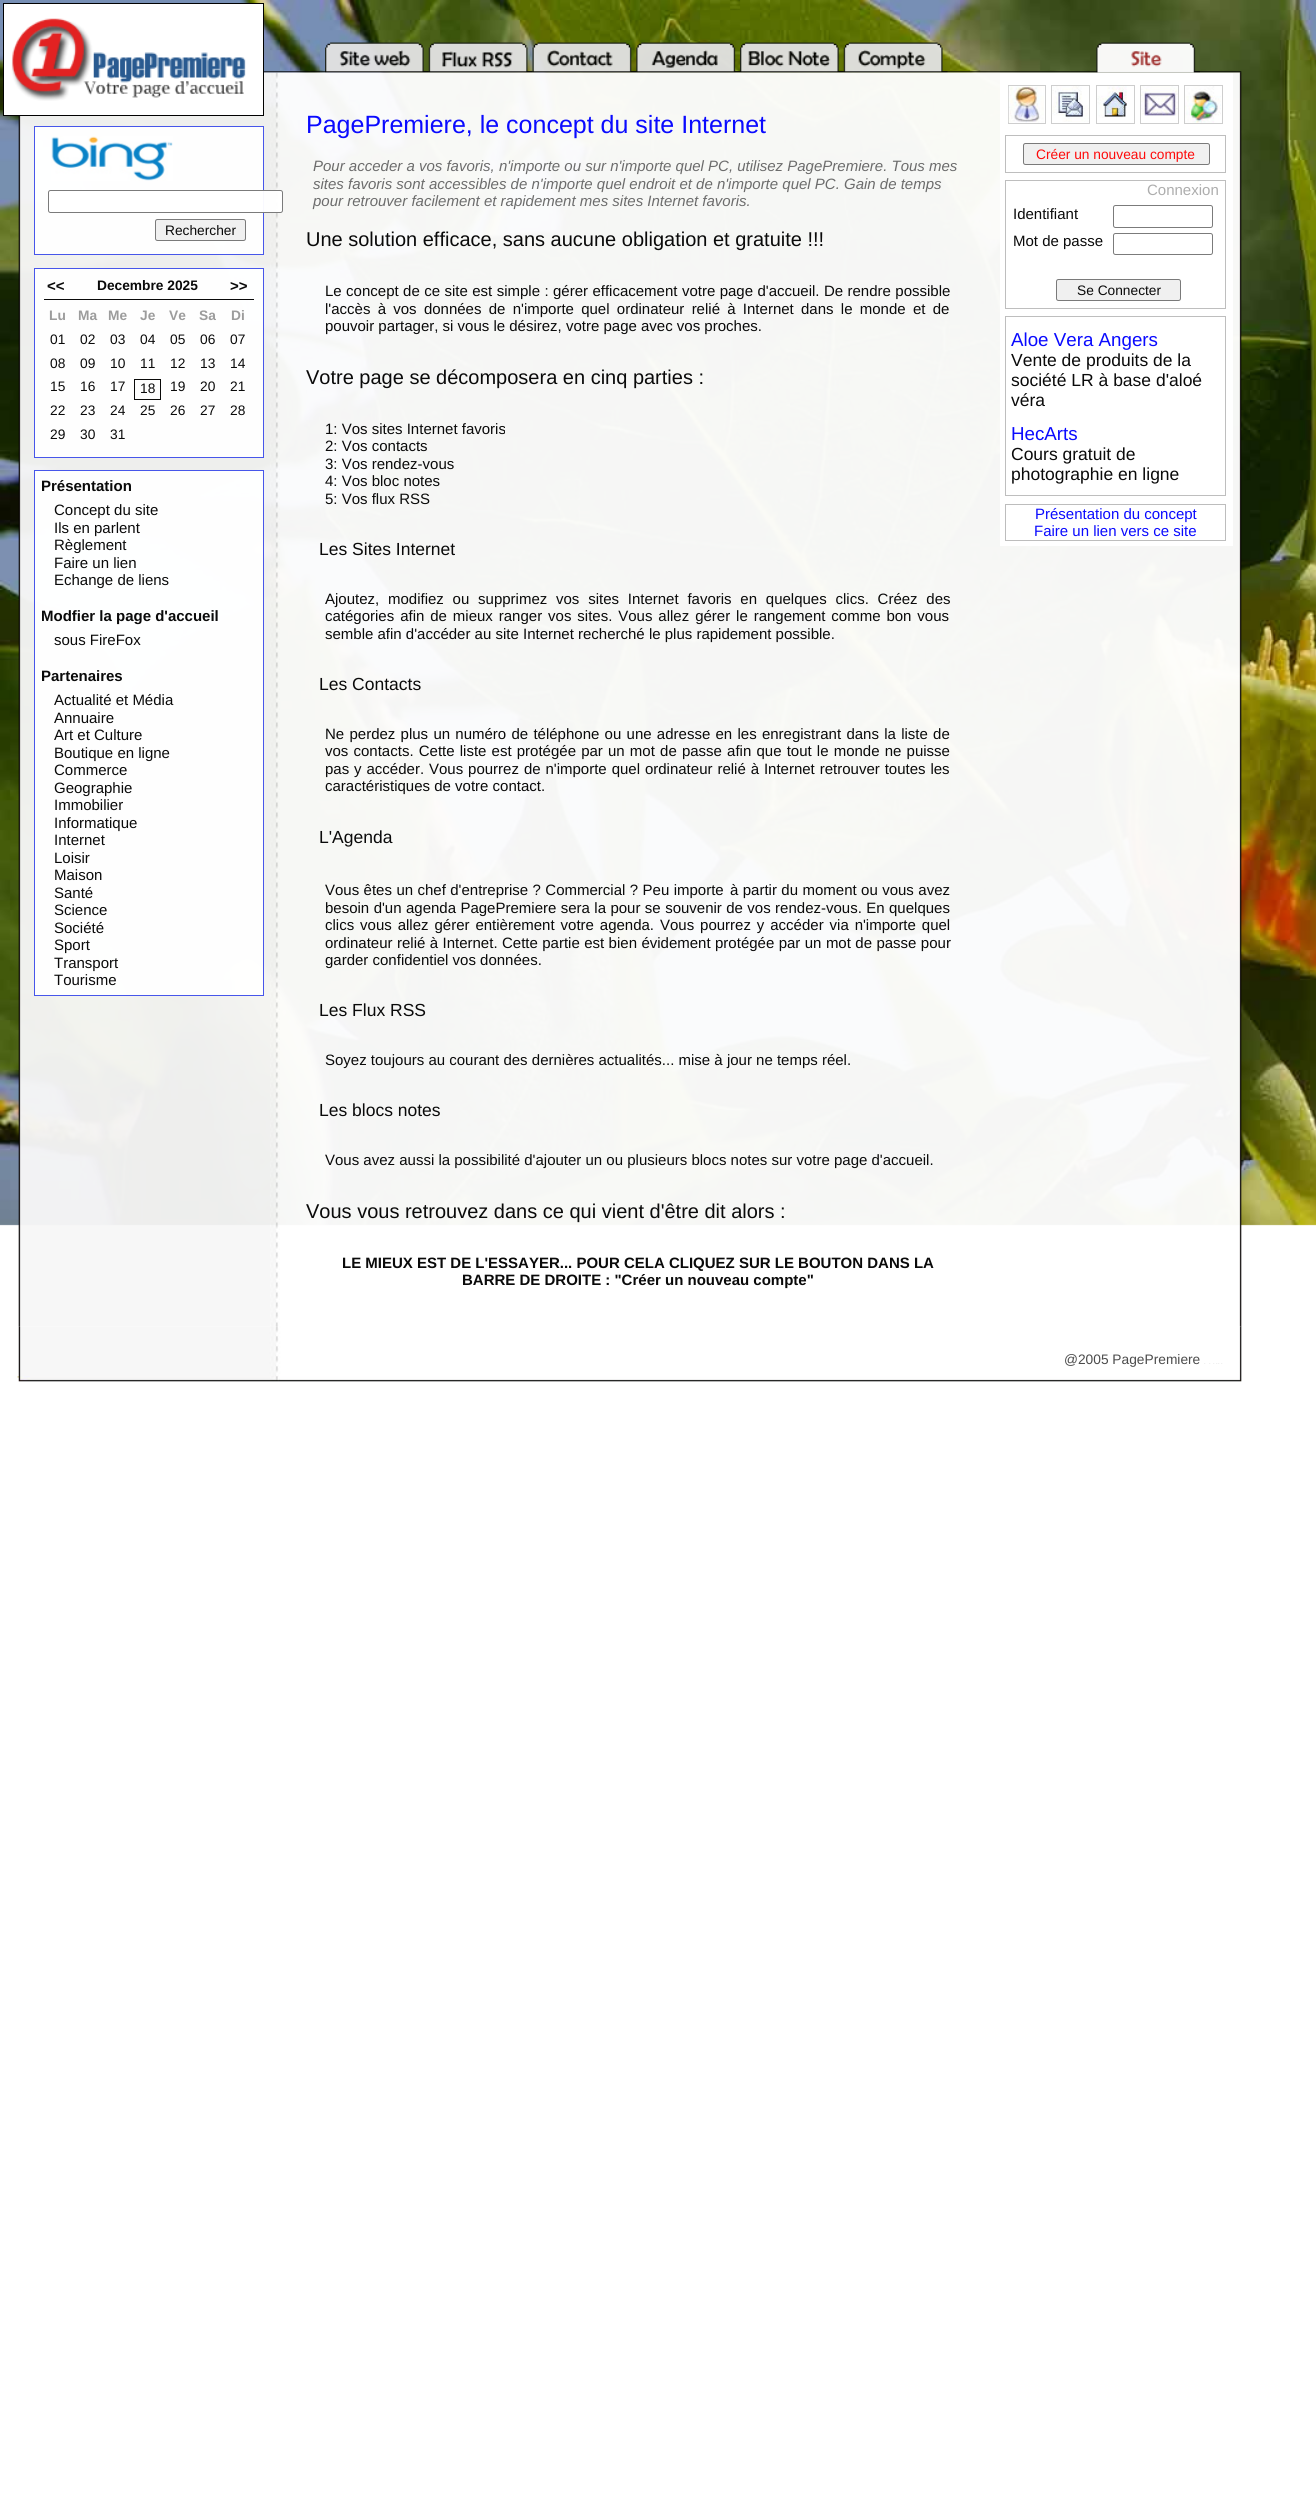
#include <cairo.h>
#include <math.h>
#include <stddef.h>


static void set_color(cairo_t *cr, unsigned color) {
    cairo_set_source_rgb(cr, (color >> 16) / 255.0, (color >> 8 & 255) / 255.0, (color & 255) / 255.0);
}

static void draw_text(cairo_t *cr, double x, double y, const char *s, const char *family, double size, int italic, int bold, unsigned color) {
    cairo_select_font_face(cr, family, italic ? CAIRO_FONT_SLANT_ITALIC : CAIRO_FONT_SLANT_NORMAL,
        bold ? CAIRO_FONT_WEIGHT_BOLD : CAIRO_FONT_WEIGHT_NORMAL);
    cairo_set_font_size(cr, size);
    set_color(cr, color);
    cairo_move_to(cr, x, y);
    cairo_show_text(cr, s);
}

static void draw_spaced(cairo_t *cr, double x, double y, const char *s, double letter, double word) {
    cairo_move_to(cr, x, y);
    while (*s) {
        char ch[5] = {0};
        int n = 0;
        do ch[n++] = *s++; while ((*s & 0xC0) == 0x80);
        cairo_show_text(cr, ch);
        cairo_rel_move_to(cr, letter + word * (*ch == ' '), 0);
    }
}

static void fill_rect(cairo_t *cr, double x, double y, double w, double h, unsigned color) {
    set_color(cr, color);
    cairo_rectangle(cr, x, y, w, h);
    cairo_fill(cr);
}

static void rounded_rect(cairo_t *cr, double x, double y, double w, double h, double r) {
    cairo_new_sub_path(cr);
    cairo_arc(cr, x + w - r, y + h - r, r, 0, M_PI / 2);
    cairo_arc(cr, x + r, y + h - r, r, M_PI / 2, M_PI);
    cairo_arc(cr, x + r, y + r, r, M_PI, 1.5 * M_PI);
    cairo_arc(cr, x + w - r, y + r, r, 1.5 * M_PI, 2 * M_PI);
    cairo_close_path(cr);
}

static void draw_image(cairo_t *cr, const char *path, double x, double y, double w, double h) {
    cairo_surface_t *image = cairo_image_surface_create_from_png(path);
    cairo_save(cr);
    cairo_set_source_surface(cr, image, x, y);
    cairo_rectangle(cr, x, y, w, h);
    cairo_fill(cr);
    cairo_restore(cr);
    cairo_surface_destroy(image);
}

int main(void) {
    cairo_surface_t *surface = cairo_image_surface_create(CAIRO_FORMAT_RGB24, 1316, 2513);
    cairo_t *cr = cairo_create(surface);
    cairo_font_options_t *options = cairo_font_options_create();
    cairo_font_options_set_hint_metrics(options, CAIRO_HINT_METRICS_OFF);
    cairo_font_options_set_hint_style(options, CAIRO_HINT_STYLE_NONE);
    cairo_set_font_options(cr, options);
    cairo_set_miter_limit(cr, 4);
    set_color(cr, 0xFFFFFF);
    cairo_paint(cr);
    draw_image(cr, "assets/img1.png", 0, 0, 1316, 1226);
    draw_image(cr, "assets/img3.png", 264, 71, 978, 2);
    draw_image(cr, "assets/img4.png", 325, 42, 104, 31);
    draw_image(cr, "assets/img5.png", 428, 42, 105, 31);
    draw_image(cr, "assets/img6.png", 532, 42, 105, 31);
    draw_image(cr, "assets/img7.png", 636, 42, 104, 31);
    draw_image(cr, "assets/img8.png", 740, 42, 104, 31);
    draw_image(cr, "assets/img9.png", 843, 42, 105, 31);
    draw_image(cr, "assets/img10.png", 1096, 42, 104, 31);
    draw_image(cr, "assets/img11.png", 18, 72, 1224, 1255);
    set_color(cr, 0xFFFFFF);
    cairo_rectangle(cr, 3.5, 3.5, 260, 112);
    cairo_fill_preserve(cr);
    set_color(cr, 0x000000);
    cairo_set_line_width(cr, 1);
    cairo_stroke(cr);
    draw_image(cr, "assets/img2.png", 11, 18, 235, 83);
    cairo_set_source_rgba(cr, 1, 1, 1, 0.96);
    cairo_rectangle(cr, 34.5, 126.5, 229, 128);
    cairo_fill_preserve(cr);
    set_color(cr, 0x4756EA);
    cairo_stroke(cr);
    draw_image(cr, "assets/img12.png", 51, 136, 122, 45);
    cairo_set_source_rgba(cr, 1, 1, 1, 0.96);
    rounded_rect(cr, 48, 190, 235, 23, 2.5);
    cairo_fill(cr);
    rounded_rect(cr, 48.5, 190.5, 234, 22, 2);
    cairo_set_source_rgba(cr, 0.463, 0.463, 0.463, 0.96);
    cairo_stroke(cr);
    set_color(cr, 0xF0F0F0);
    rounded_rect(cr, 155, 219, 91, 22, 2.5);
    cairo_fill(cr);
    rounded_rect(cr, 155.5, 219.5, 90, 21, 2);
    cairo_set_source_rgba(cr, 0.463, 0.463, 0.463, 0.96);
    cairo_stroke(cr);
    draw_text(cr, 165, 235, "Rechercher", "Liberation Sans", 13.75, 0, 0, 0x0A0A0A);
    cairo_set_source_rgba(cr, 1, 1, 1, 0.96);
    cairo_rectangle(cr, 34.5, 268.5, 229, 189);
    cairo_fill_preserve(cr);
    set_color(cr, 0x4756EA);
    cairo_stroke(cr);
    fill_rect(cr, 44, 299, 210, 1, 0x0A0A0A);
    draw_text(cr, 47, 291, "<<", "Liberation Sans", 15, 0, 1, 0x0A0A0A);
    draw_text(cr, 97, 290, "Decembre 2025", "Liberation Sans", 13.75, 0, 1, 0x0A0A0A);
    draw_text(cr, 230, 291, ">>", "Liberation Sans", 15, 0, 1, 0x0A0A0A);
    draw_text(cr, 49, 320, "Lu", "Liberation Sans", 13.75, 0, 1, 0x9C9C9C);
    draw_text(cr, 78, 320, "Ma", "Liberation Sans", 13.75, 0, 1, 0x9C9C9C);
    draw_text(cr, 108, 320, "Me", "Liberation Sans", 13.75, 0, 1, 0x9C9C9C);
    draw_text(cr, 140, 320, "Je", "Liberation Sans", 13.75, 0, 1, 0x9C9C9C);
    draw_text(cr, 169, 320, "Ve", "Liberation Sans", 13.75, 0, 1, 0x9C9C9C);
    draw_text(cr, 199, 320, "Sa", "Liberation Sans", 13.75, 0, 1, 0x9C9C9C);
    draw_text(cr, 231, 320, "Di", "Liberation Sans", 13.75, 0, 1, 0x9C9C9C);
    draw_text(cr, 50, 344, "01", "Liberation Sans", 13.75, 0, 0, 0x0A0A0A);
    draw_text(cr, 80, 344, "02", "Liberation Sans", 13.75, 0, 0, 0x0A0A0A);
    draw_text(cr, 110, 344, "03", "Liberation Sans", 13.75, 0, 0, 0x0A0A0A);
    draw_text(cr, 140, 344, "04", "Liberation Sans", 13.75, 0, 0, 0x0A0A0A);
    draw_text(cr, 170, 344, "05", "Liberation Sans", 13.75, 0, 0, 0x0A0A0A);
    draw_text(cr, 200, 344, "06", "Liberation Sans", 13.75, 0, 0, 0x0A0A0A);
    draw_text(cr, 230, 344, "07", "Liberation Sans", 13.75, 0, 0, 0x0A0A0A);
    draw_text(cr, 50, 368, "08", "Liberation Sans", 13.75, 0, 0, 0x0A0A0A);
    draw_text(cr, 80, 368, "09", "Liberation Sans", 13.75, 0, 0, 0x0A0A0A);
    draw_text(cr, 110, 368, "10", "Liberation Sans", 13.75, 0, 0, 0x0A0A0A);
    draw_text(cr, 140, 368, "11", "Liberation Sans", 13.75, 0, 0, 0x0A0A0A);
    draw_text(cr, 170, 368, "12", "Liberation Sans", 13.75, 0, 0, 0x0A0A0A);
    draw_text(cr, 200, 368, "13", "Liberation Sans", 13.75, 0, 0, 0x0A0A0A);
    draw_text(cr, 230, 368, "14", "Liberation Sans", 13.75, 0, 0, 0x0A0A0A);
    draw_text(cr, 50, 391, "15", "Liberation Sans", 13.75, 0, 0, 0x0A0A0A);
    draw_text(cr, 80, 391, "16", "Liberation Sans", 13.75, 0, 0, 0x0A0A0A);
    draw_text(cr, 110, 391, "17", "Liberation Sans", 13.75, 0, 0, 0x0A0A0A);
    cairo_rectangle(cr, 134.5, 379.5, 26, 20);
    set_color(cr, 0x0A0A09);
    cairo_stroke(cr);
    draw_text(cr, 140, 393, "18", "Liberation Sans", 13.75, 0, 0, 0x0A0A0A);
    draw_text(cr, 170, 391, "19", "Liberation Sans", 13.75, 0, 0, 0x0A0A0A);
    draw_text(cr, 200, 391, "20", "Liberation Sans", 13.75, 0, 0, 0x0A0A0A);
    draw_text(cr, 230, 391, "21", "Liberation Sans", 13.75, 0, 0, 0x0A0A0A);
    draw_text(cr, 50, 415, "22", "Liberation Sans", 13.75, 0, 0, 0x0A0A0A);
    draw_text(cr, 80, 415, "23", "Liberation Sans", 13.75, 0, 0, 0x0A0A0A);
    draw_text(cr, 110, 415, "24", "Liberation Sans", 13.75, 0, 0, 0x0A0A0A);
    draw_text(cr, 140, 415, "25", "Liberation Sans", 13.75, 0, 0, 0x0A0A0A);
    draw_text(cr, 170, 415, "26", "Liberation Sans", 13.75, 0, 0, 0x0A0A0A);
    draw_text(cr, 200, 415, "27", "Liberation Sans", 13.75, 0, 0, 0x0A0A0A);
    draw_text(cr, 230, 415, "28", "Liberation Sans", 13.75, 0, 0, 0x0A0A0A);
    draw_text(cr, 50, 439, "29", "Liberation Sans", 13.75, 0, 0, 0x0A0A0A);
    draw_text(cr, 80, 439, "30", "Liberation Sans", 13.75, 0, 0, 0x0A0A0A);
    draw_text(cr, 110, 439, "31", "Liberation Sans", 13.75, 0, 0, 0x0A0A0A);
    cairo_set_source_rgba(cr, 1, 1, 1, 0.96);
    cairo_rectangle(cr, 34.5, 470.5, 229, 525);
    cairo_fill_preserve(cr);
    set_color(cr, 0x4756EA);
    cairo_stroke(cr);
    draw_text(cr, 41, 491, "Présentation", "Liberation Sans", 15, 0, 1, 0x0A0A0A);
    draw_text(cr, 54, 515, "Concept du site", "Liberation Sans", 15, 0, 0, 0x0A0A0A);
    draw_text(cr, 54, 533, "Ils en parlent", "Liberation Sans", 15, 0, 0, 0x0A0A0A);
    draw_text(cr, 54, 550, "Règlement", "Liberation Sans", 15, 0, 0, 0x0A0A0A);
    draw_text(cr, 54, 568, "Faire un lien", "Liberation Sans", 15, 0, 0, 0x0A0A0A);
    draw_text(cr, 54, 585, "Echange de liens", "Liberation Sans", 15, 0, 0, 0x0A0A0A);
    draw_text(cr, 41, 621, "Modfier la page d'accueil", "Liberation Sans", 15, 0, 1, 0x0A0A0A);
    draw_text(cr, 54, 645, "sous FireFox", "Liberation Sans", 15, 0, 0, 0x0A0A0A);
    draw_text(cr, 41, 681, "Partenaires", "Liberation Sans", 15, 0, 1, 0x0A0A0A);
    draw_text(cr, 54, 705, "Actualité et Média", "Liberation Sans", 15, 0, 0, 0x0A0A0A);
    draw_text(cr, 54, 723, "Annuaire", "Liberation Sans", 15, 0, 0, 0x0A0A0A);
    draw_text(cr, 54, 740, "Art et Culture", "Liberation Sans", 15, 0, 0, 0x0A0A0A);
    draw_text(cr, 54, 758, "Boutique en ligne", "Liberation Sans", 15, 0, 0, 0x0A0A0A);
    draw_text(cr, 54, 775, "Commerce", "Liberation Sans", 15, 0, 0, 0x0A0A0A);
    draw_text(cr, 54, 793, "Geographie", "Liberation Sans", 15, 0, 0, 0x0A0A0A);
    draw_text(cr, 54, 810, "Immobilier", "Liberation Sans", 15, 0, 0, 0x0A0A0A);
    draw_text(cr, 54, 828, "Informatique", "Liberation Sans", 15, 0, 0, 0x0A0A0A);
    draw_text(cr, 54, 845, "Internet", "Liberation Sans", 15, 0, 0, 0x0A0A0A);
    draw_text(cr, 54, 863, "Loisir", "Liberation Sans", 15, 0, 0, 0x0A0A0A);
    draw_text(cr, 54, 880, "Maison", "Liberation Sans", 15, 0, 0, 0x0A0A0A);
    draw_text(cr, 54, 898, "Santé", "Liberation Sans", 15, 0, 0, 0x0A0A0A);
    draw_text(cr, 54, 915, "Science", "Liberation Sans", 15, 0, 0, 0x0A0A0A);
    draw_text(cr, 54, 933, "Société", "Liberation Sans", 15, 0, 0, 0x0A0A0A);
    draw_text(cr, 54, 950, "Sport", "Liberation Sans", 15, 0, 0, 0x0A0A0A);
    draw_text(cr, 54, 968, "Transport", "Liberation Sans", 15, 0, 0, 0x0A0A0A);
    draw_text(cr, 54, 985, "Tourisme", "Liberation Sans", 15, 0, 0, 0x0A0A0A);
    draw_text(cr, 306, 133, "PagePremiere, le concept du site Internet", "Liberation Sans", 25, 0, 0, 0x0A0AFF);
    draw_text(cr, 313, 171, "Pour acceder a vos favoris, n'importe ou sur n'importe quel PC, utilisez PagePremiere. Tous mes", "Liberation Sans", 15, 1, 0, 0x6C6C6C);
    draw_text(cr, 313, 189, "sites favoris sont accessibles de n'importe quel endroit et de n'importe quel PC. Gain de temps", "Liberation Sans", 15, 1, 0, 0x6C6C6C);
    draw_text(cr, 313, 206, "pour retrouver facilement et rapidement mes sites Internet favoris.", "Liberation Sans", 15, 1, 0, 0x6C6C6C);
    draw_text(cr, 306, 246, "Une solution efficace, sans aucune obligation et gratuite !!!", "Liberation Sans", 20, 0, 0, 0x0A0A0A);
    cairo_set_font_size(cr, 15);
    draw_spaced(cr, 325, 296, "Le concept de ce site est simple : gérer efficacement votre page d'accueil. De rendre possible", 0, 0.25);
    draw_spaced(cr, 325, 314, "l'accès à vos données de n'importe quel ordinateur relié à Internet dans le monde et de", 0, 3.1);
    draw_text(cr, 325, 331, "pouvoir partager, si vous le désirez, votre page avec vos proches.", "Liberation Sans", 15, 0, 0, 0x0A0A0A);
    draw_text(cr, 306, 384, "Votre page se décomposera en cinq parties :", "Liberation Sans", 20, 0, 0, 0x0A0A0A);
    draw_text(cr, 325, 434, "1: Vos sites Internet favoris", "Liberation Sans", 15, 0, 0, 0x0A0A0A);
    draw_text(cr, 325, 451, "2: Vos contacts", "Liberation Sans", 15, 0, 0, 0x0A0A0A);
    draw_text(cr, 325, 469, "3: Vos rendez-vous", "Liberation Sans", 15, 0, 0, 0x0A0A0A);
    draw_text(cr, 325, 486, "4: Vos bloc notes", "Liberation Sans", 15, 0, 0, 0x0A0A0A);
    draw_text(cr, 325, 504, "5: Vos flux RSS", "Liberation Sans", 15, 0, 0, 0x0A0A0A);
    draw_text(cr, 319, 555, "Les Sites Internet", "Liberation Sans", 17.5, 0, 0, 0x0A0A0A);
    cairo_set_font_size(cr, 15);
    draw_spaced(cr, 325, 604, "Ajoutez, modifiez ou supprimez vos sites Internet favoris en quelques clics. Créez des", 0, 4.6);
    draw_spaced(cr, 325, 621, "catégories afin de mieux ranger vos sites. Vous allez gérer le rangement comme bon vous", 0, 1.75);
    draw_text(cr, 325, 639, "semble afin d'accéder au site Internet recherché le plus rapidement possible.", "Liberation Sans", 15, 0, 0, 0x0A0A0A);
    draw_text(cr, 319, 690, "Les Contacts", "Liberation Sans", 17.5, 0, 0, 0x0A0A0A);
    cairo_set_font_size(cr, 15);
    draw_spaced(cr, 325, 739, "Ne perdez plus un numéro de téléphone ou une adresse en les enregistrant dans la liste de", 0, 1.1);
    draw_spaced(cr, 325, 756, "vos contacts. Cette liste est protégée par un mot de passe afin que tout le monde ne puisse", 0, 1);
    draw_spaced(cr, 325, 774, "pas y accéder. Vous pourrez de n'importe quel ordinateur relié à Internet retrouver toutes les", 0, 0.75);
    draw_text(cr, 325, 791, "caractéristiques de votre contact.", "Liberation Sans", 15, 0, 0, 0x0A0A0A);
    draw_text(cr, 319, 843, "L'Agenda", "Liberation Sans", 17.5, 0, 0, 0x0A0A0A);
    cairo_set_font_size(cr, 15);
    draw_spaced(cr, 325, 895, "Vous êtes un chef d'entreprise ? Commercial ? Peu importe", 0, 0.25);
    draw_spaced(cr, 730, 895, "à partir du moment ou vous avez", 0, 0.25);
    draw_spaced(cr, 325, 913, "besoin d'un agenda PagePremiere sera la pour se souvenir de vos rendez-vous. En quelques", 0, 0.25);
    draw_spaced(cr, 325, 930, "clics vous allez gérer entièrement votre agenda. Vous pourrez y accéder via n'importe quel", 0, 1.75);
    draw_spaced(cr, 325, 948, "ordinateur relié à Internet. Cette partie est bien évidement protégée par un mot de passe pour", 0, 0.25);
    draw_text(cr, 325, 965, "garder confidentiel vos données.", "Liberation Sans", 15, 0, 0, 0x0A0A0A);
    draw_text(cr, 319, 1016, "Les Flux RSS", "Liberation Sans", 17.5, 0, 0, 0x0A0A0A);
    draw_text(cr, 325, 1065, "Soyez toujours au courant des dernières actualités... mise à jour ne temps réel.", "Liberation Sans", 15, 0, 0, 0x0A0A0A);
    draw_text(cr, 319, 1116, "Les blocs notes", "Liberation Sans", 17.5, 0, 0, 0x0A0A0A);
    draw_text(cr, 325, 1165, "Vous avez aussi la possibilité d'ajouter un ou plusieurs blocs notes sur votre page d'accueil.", "Liberation Sans", 15, 0, 0, 0x0A0A0A);
    draw_text(cr, 306, 1218, "Vous vous retrouvez dans ce qui vient d'être dit alors :", "Liberation Sans", 20, 0, 0, 0x0A0A0A);
    draw_text(cr, 342, 1268, "LE MIEUX EST DE L'ESSAYER... POUR CELA CLIQUEZ SUR LE BOUTON DANS LA", "Liberation Sans", 15, 0, 1, 0x0A0A0A);
    draw_text(cr, 462, 1285, "BARRE DE DROITE : \"Créer un nouveau compte\"", "Liberation Sans", 15, 0, 1, 0x0A0A0A);
    cairo_set_source_rgba(cr, 1, 1, 1, 0.96);
    cairo_rectangle(cr, 1000, 73, 233, 473);
    cairo_fill(cr);
    cairo_rectangle(cr, 1008.5, 85.5, 37, 38);
    set_color(cr, 0xCECECE);
    cairo_stroke(cr);
    cairo_rectangle(cr, 1051.5, 85.5, 38, 38);
    cairo_stroke(cr);
    cairo_rectangle(cr, 1096.5, 85.5, 38, 38);
    cairo_stroke(cr);
    cairo_rectangle(cr, 1140.5, 85.5, 38, 38);
    cairo_stroke(cr);
    cairo_rectangle(cr, 1184.5, 85.5, 38, 38);
    cairo_stroke(cr);
    draw_image(cr, "assets/img13.png", 1008, 86, 36, 37);
    draw_image(cr, "assets/img14.png", 1052, 86, 37, 36);
    draw_image(cr, "assets/img15.png", 1097, 86, 30, 32);
    draw_image(cr, "assets/img16.png", 1141, 86, 37, 30);
    draw_image(cr, "assets/img17.png", 1185, 86, 36, 37);
    cairo_rectangle(cr, 1005.5, 135.5, 220, 37);
    set_color(cr, 0xBEBEBE);
    cairo_stroke(cr);
    set_color(cr, 0xF0F0F0);
    rounded_rect(cr, 1023, 143, 187, 22, 2.5);
    cairo_fill(cr);
    rounded_rect(cr, 1023.5, 143.5, 186, 21, 2);
    cairo_set_source_rgba(cr, 0.463, 0.463, 0.463, 0.96);
    cairo_stroke(cr);
    draw_text(cr, 1036, 159, "Créer un nouveau compte", "Liberation Sans", 13.75, 0, 0, 0xFE0A0A);
    cairo_rectangle(cr, 1005.5, 180.5, 220, 128);
    set_color(cr, 0xBEBEBE);
    cairo_stroke(cr);
    draw_text(cr, 1147, 195, "Connexion", "Liberation Sans", 15, 0, 0, 0xADADAD);
    draw_text(cr, 1013, 219, "Identifiant", "Liberation Sans", 15, 0, 0, 0x0A0A0A);
    rounded_rect(cr, 1113.5, 205.5, 99, 22, 2);
    set_color(cr, 0x7B7B7B);
    cairo_stroke(cr);
    draw_text(cr, 1013, 246, "Mot de passe", "Liberation Sans", 15, 0, 0, 0x0A0A0A);
    rounded_rect(cr, 1113.5, 233.5, 99, 21, 2);
    set_color(cr, 0x7B7B7B);
    cairo_stroke(cr);
    set_color(cr, 0xF0F0F0);
    rounded_rect(cr, 1056, 279, 125, 22, 2.5);
    cairo_fill(cr);
    rounded_rect(cr, 1056.5, 279.5, 124, 21, 2);
    cairo_set_source_rgba(cr, 0.463, 0.463, 0.463, 0.96);
    cairo_stroke(cr);
    draw_text(cr, 1077, 295, "Se Connecter", "Liberation Sans", 13.75, 0, 0, 0x0A0A0A);
    cairo_rectangle(cr, 1005.5, 316.5, 220, 179);
    set_color(cr, 0xBEBEBE);
    cairo_stroke(cr);
    draw_text(cr, 1011, 346, "Aloe Vera Angers", "Liberation Sans", 18.75, 0, 0, 0x0A0AFF);
    draw_text(cr, 1011, 366, "Vente de produits de la", "Liberation Sans", 17.5, 0, 0, 0x0A0A0A);
    draw_text(cr, 1011, 386, "société LR à base d'aloé", "Liberation Sans", 17.5, 0, 0, 0x0A0A0A);
    draw_text(cr, 1011, 406, "véra", "Liberation Sans", 17.5, 0, 0, 0x0A0A0A);
    draw_text(cr, 1011, 440, "HecArts", "Liberation Sans", 18.75, 0, 0, 0x0A0AFF);
    draw_text(cr, 1011, 460, "Cours gratuit de", "Liberation Sans", 17.5, 0, 0, 0x0A0A0A);
    draw_text(cr, 1011, 480, "photographie en ligne", "Liberation Sans", 17.5, 0, 0, 0x0A0A0A);
    cairo_rectangle(cr, 1005.5, 504.5, 220, 36);
    set_color(cr, 0xBDBDBD);
    cairo_stroke(cr);
    draw_text(cr, 1035, 519, "Présentation du concept", "Liberation Sans", 15, 0, 0, 0x0A0AFF);
    draw_text(cr, 1034, 536, "Faire un lien vers ce site", "Liberation Sans", 15, 0, 0, 0x0A0AFF);
    draw_image(cr, "assets/img18.png", 17, 1326, 1225, 56);
    draw_text(cr, 1064, 1364, "@2005 PagePremiere", "Liberation Sans", 13.75, 0, 0, 0x4B4B4B);
    draw_text(cr, 1204, 1364, ".", "Liberation Sans", 6, 0, 0, 0xCECECE);
    draw_text(cr, 1209, 1364, ".", "Liberation Sans", 6, 0, 0, 0xCECECE);
    draw_text(cr, 1213, 1364, ".", "Liberation Sans", 6, 0, 0, 0xCECECE);
    draw_text(cr, 1216, 1364, ".", "Liberation Sans", 6, 0, 0, 0xCECECE);
    draw_text(cr, 1218, 1364, ".", "Liberation Sans", 6, 0, 0, 0xCECECE);
    draw_text(cr, 1221, 1364, ".", "Liberation Sans", 6, 0, 0, 0xCECECE);
    cairo_surface_write_to_png(surface, "output.png");
    cairo_font_options_destroy(options);
    cairo_destroy(cr);
    cairo_surface_destroy(surface);
    return 0;
}
